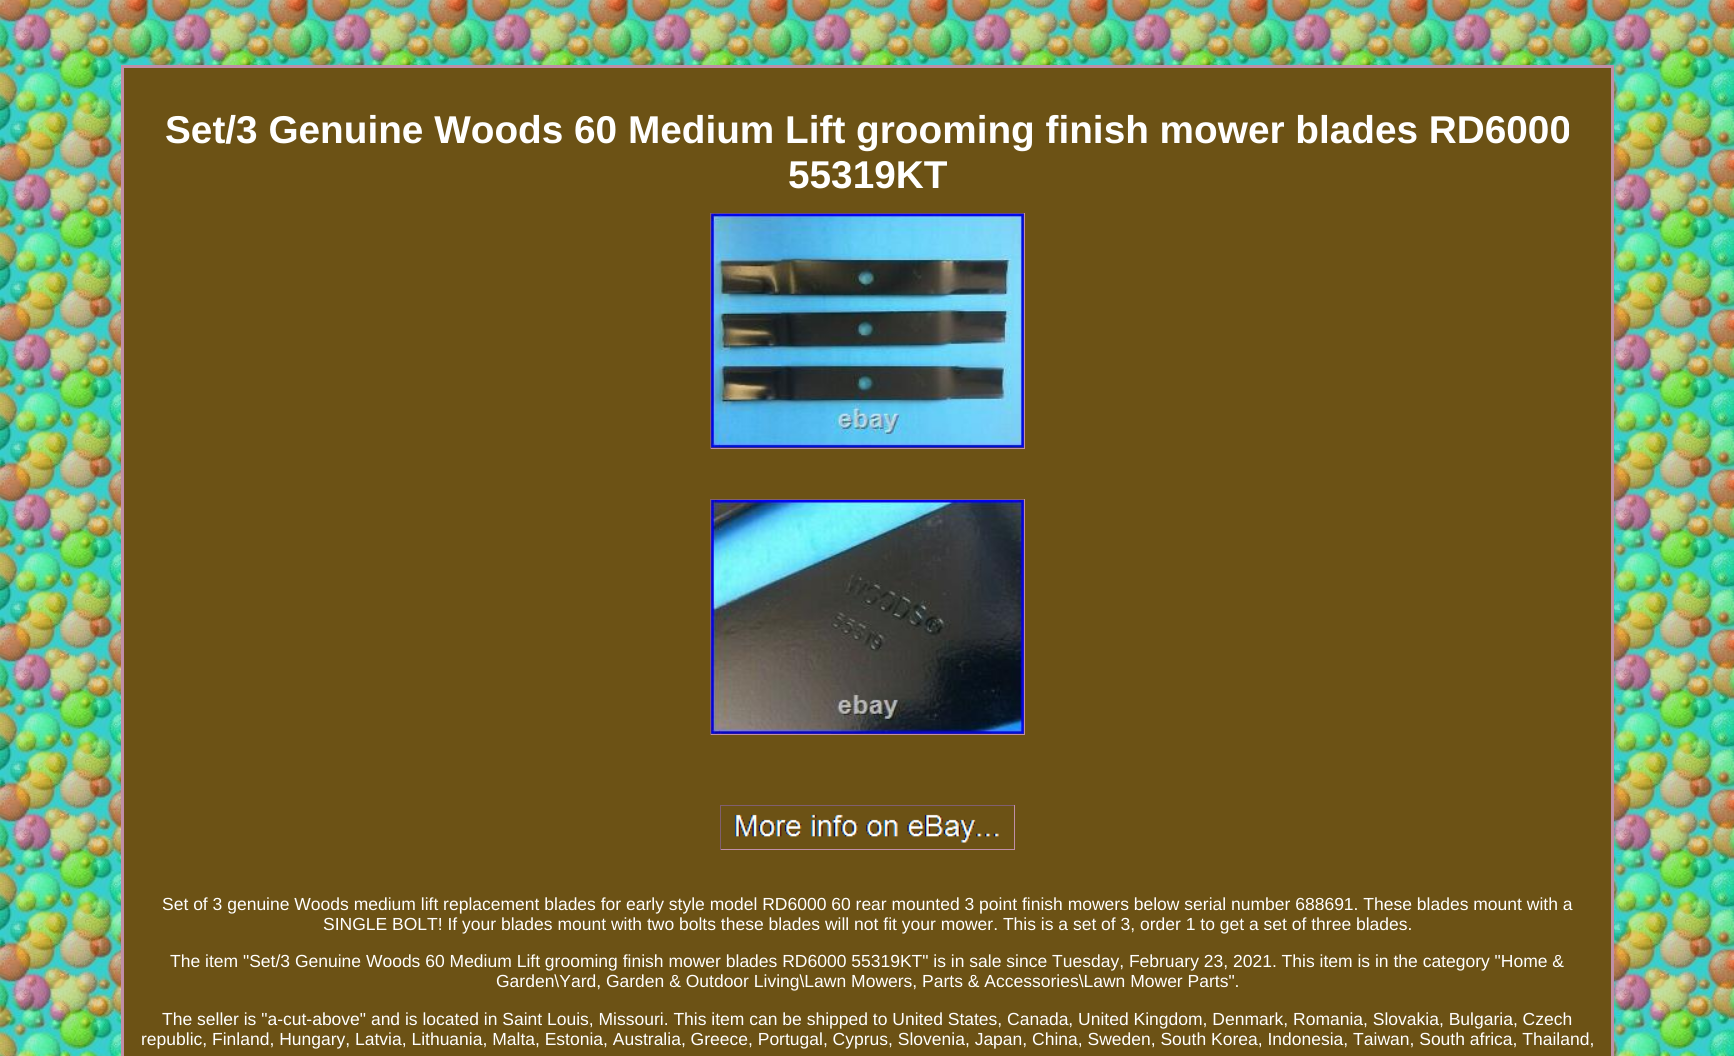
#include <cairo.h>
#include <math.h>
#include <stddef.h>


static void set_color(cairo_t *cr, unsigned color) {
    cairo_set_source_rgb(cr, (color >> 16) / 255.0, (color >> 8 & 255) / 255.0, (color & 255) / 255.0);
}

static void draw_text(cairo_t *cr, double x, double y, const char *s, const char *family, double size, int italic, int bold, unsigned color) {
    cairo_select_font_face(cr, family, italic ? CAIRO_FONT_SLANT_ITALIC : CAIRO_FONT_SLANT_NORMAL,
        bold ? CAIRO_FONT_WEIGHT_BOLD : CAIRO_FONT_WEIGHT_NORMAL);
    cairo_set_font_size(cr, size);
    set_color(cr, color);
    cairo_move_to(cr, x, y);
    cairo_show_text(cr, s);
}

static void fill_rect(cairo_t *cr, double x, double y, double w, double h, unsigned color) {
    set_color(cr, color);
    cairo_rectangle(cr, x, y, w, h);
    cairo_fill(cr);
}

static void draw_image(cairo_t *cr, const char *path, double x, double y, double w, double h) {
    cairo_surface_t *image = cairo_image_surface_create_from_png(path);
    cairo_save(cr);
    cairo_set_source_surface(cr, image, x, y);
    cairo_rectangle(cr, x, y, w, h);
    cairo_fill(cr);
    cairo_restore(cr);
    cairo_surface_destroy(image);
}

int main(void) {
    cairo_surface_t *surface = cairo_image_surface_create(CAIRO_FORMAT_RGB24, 1734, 1056);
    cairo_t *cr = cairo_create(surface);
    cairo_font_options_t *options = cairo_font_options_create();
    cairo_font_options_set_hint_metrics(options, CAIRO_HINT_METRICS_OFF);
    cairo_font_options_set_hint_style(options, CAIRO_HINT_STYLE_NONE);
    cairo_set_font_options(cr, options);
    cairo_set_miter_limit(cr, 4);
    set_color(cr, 0xFFFFFF);
    cairo_paint(cr);
    draw_image(cr, "assets/img1.png", 0, 0, 1734, 1056);
    set_color(cr, 0x6C5215);
    cairo_rectangle(cr, 122.5, 66.5, 1490, 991);
    cairo_fill_preserve(cr);
    set_color(cr, 0xC08EA7);
    cairo_set_line_width(cr, 3);
    cairo_stroke(cr);
    draw_text(cr, 165, 143, "Set/3 Genuine Woods 60 Medium Lift grooming finish mower blades RD6000", "Liberation Sans", 38.75, 0, 1, 0xFFFFFF);
    draw_text(cr, 788, 188, "55319KT", "Liberation Sans", 38.75, 0, 1, 0xFFFFFF);
    fill_rect(cr, 710, 213, 315, 1, 0x805F6F);
    fill_rect(cr, 1024, 213, 1, 236, 0xC08EA7);
    fill_rect(cr, 710, 448, 315, 1, 0xC08EA7);
    fill_rect(cr, 710, 213, 1, 236, 0x805F6F);
    draw_image(cr, "assets/img2.png", 711, 213, 313, 235);
    fill_rect(cr, 710, 499, 315, 1, 0x805F6F);
    fill_rect(cr, 1024, 499, 1, 236, 0xC08EA7);
    fill_rect(cr, 710, 734, 315, 1, 0xC08EA7);
    fill_rect(cr, 710, 499, 1, 236, 0x805F6F);
    draw_image(cr, "assets/img3.png", 711, 500, 313, 234);
    fill_rect(cr, 720, 805, 295, 1, 0x805F6F);
    fill_rect(cr, 1014, 805, 1, 45, 0xC08EA7);
    fill_rect(cr, 720, 849, 295, 1, 0xC08EA7);
    fill_rect(cr, 720, 805, 1, 45, 0x805F6F);
    draw_image(cr, "assets/img4.png", 734, 814, 265, 29);
    draw_text(cr, 162, 910, "Set of 3 genuine Woods medium lift replacement blades for early style model RD6000 60 rear mounted 3 point finish mowers below serial number 688691. These blades mount with a", "Liberation Sans", 17.5, 0, 0, 0xFFFFFF);
    draw_text(cr, 323, 930, "SINGLE BOLT! If your blades mount with two bolts these blades will not fit your mower. This is a set of 3, order 1 to get a set of three blades.", "Liberation Sans", 17.5, 0, 0, 0xFFFFFF);
    draw_text(cr, 170, 967, "The item \"Set/3 Genuine Woods 60 Medium Lift grooming finish mower blades RD6000 55319KT\" is in sale since Tuesday, February 23, 2021. This item is in the category \"Home &", "Liberation Sans", 17.5, 0, 0, 0xFFFFFF);
    draw_text(cr, 496, 987, "Garden\\Yard, Garden & Outdoor Living\\Lawn Mowers, Parts & Accessories\\Lawn Mower Parts\".", "Liberation Sans", 17.5, 0, 0, 0xFFFFFF);
    draw_text(cr, 162, 1025, "The seller is \"a-cut-above\" and is located in Saint Louis, Missouri. This item can be shipped to United States, Canada, United Kingdom, Denmark, Romania, Slovakia, Bulgaria, Czech", "Liberation Sans", 17.5, 0, 0, 0xFFFFFF);
    draw_text(cr, 141, 1045, "republic, Finland, Hungary, Latvia, Lithuania, Malta, Estonia, Australia, Greece, Portugal, Cyprus, Slovenia, Japan, China, Sweden, South Korea, Indonesia, Taiwan, South africa, Thailand,", "Liberation Sans", 17.5, 0, 0, 0xFFFFFF);
    cairo_surface_write_to_png(surface, "output.png");
    cairo_font_options_destroy(options);
    cairo_destroy(cr);
    cairo_surface_destroy(surface);
    return 0;
}
